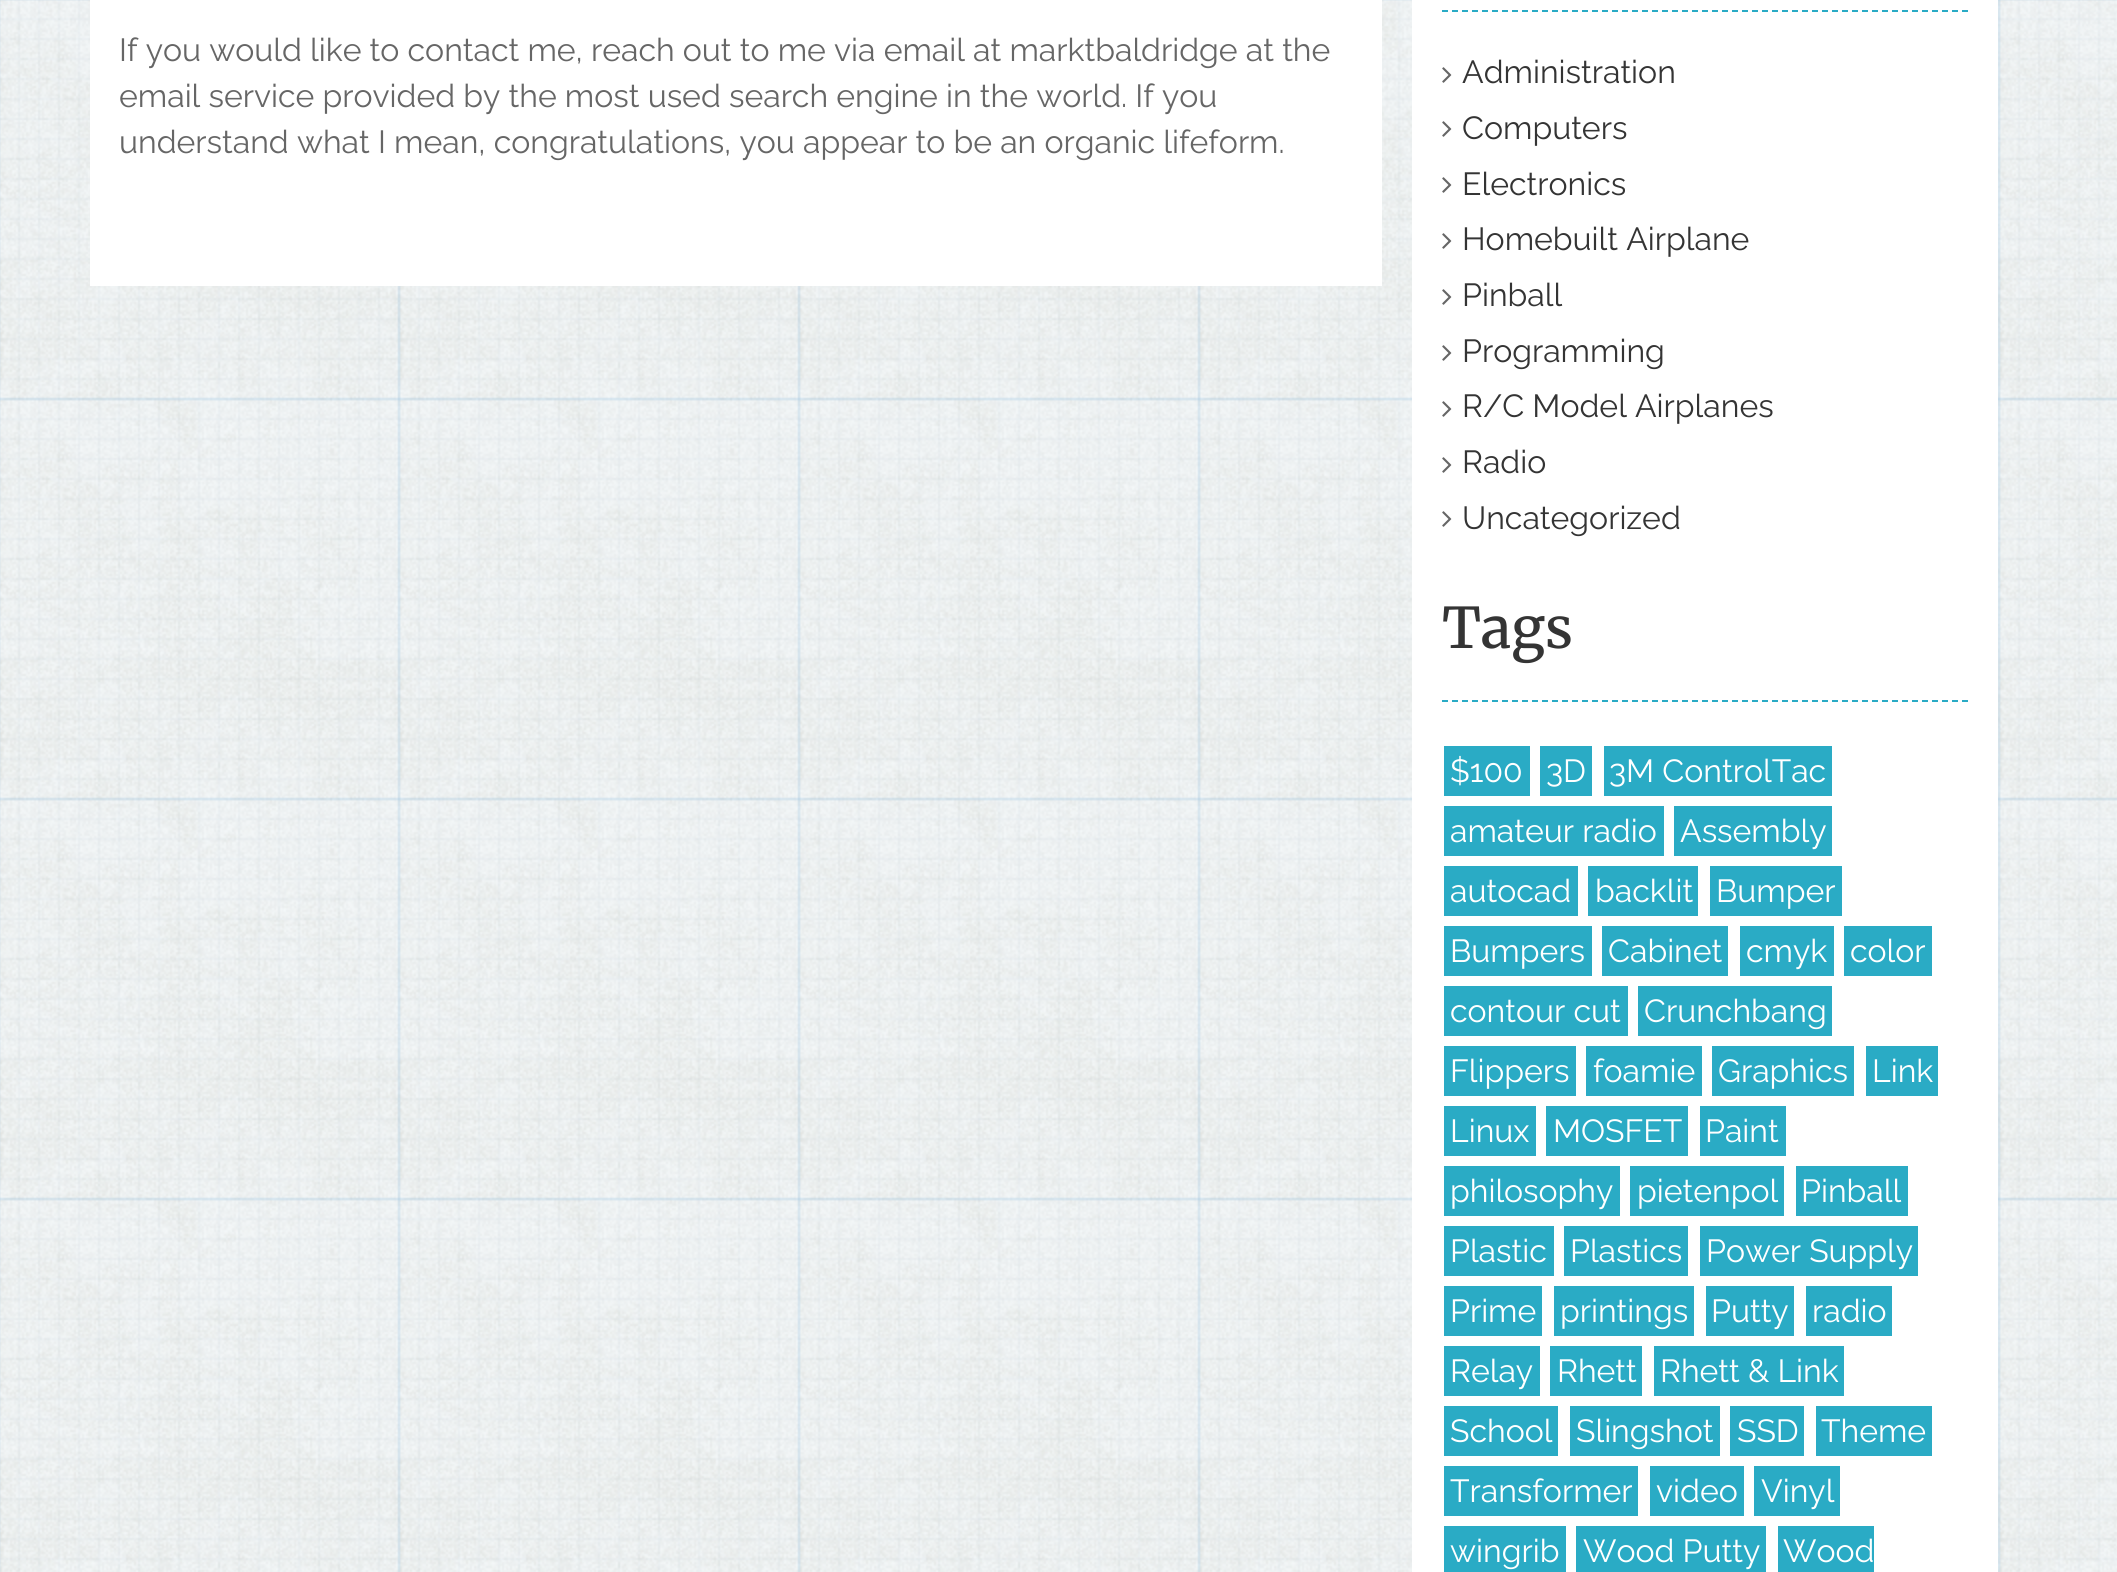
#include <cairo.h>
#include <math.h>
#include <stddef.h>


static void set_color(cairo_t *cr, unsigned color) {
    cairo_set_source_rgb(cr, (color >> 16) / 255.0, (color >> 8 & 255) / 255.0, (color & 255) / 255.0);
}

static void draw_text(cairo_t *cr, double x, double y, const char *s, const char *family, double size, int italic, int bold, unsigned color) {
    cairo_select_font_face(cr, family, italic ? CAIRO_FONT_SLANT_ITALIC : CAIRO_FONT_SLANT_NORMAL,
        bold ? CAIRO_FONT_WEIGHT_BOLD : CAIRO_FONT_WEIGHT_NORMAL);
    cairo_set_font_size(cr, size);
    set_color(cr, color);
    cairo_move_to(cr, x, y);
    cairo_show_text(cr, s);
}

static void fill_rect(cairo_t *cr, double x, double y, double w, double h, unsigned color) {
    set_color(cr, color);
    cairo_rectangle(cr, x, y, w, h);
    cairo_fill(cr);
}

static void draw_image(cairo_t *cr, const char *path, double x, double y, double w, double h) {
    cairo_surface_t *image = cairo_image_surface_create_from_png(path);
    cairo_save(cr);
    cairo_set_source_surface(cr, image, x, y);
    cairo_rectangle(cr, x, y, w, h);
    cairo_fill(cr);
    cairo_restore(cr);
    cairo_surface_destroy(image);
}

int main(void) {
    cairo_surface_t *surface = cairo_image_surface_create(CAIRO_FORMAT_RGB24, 2117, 1572);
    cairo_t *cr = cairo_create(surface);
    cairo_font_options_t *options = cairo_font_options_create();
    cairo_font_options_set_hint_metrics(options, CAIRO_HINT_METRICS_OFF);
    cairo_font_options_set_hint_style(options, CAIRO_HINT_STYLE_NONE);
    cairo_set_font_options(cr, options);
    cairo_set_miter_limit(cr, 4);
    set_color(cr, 0xFFFFFF);
    cairo_paint(cr);
    draw_image(cr, "assets/img1.png", 0, 0, 2117, 1572);
    fill_rect(cr, 90, 0, 1292, 286, 0xFFFFFF);
    draw_text(cr, 119, 61, "If you would like to contact me, reach out to me via email at marktbaldridge at the", "Raleway", 32, 0, 0, 0x666666);
    draw_text(cr, 119, 107, "email service provided by the most used search engine in the world. If you", "Raleway", 32, 0, 0, 0x666666);
    draw_text(cr, 119, 153, "understand what I mean, congratulations, you appear to be an organic lifeform.", "Raleway", 32, 0, 0, 0x666666);
    fill_rect(cr, 1412, 0, 586, 1572, 0xFFFFFF);
    cairo_new_path(cr);
    cairo_move_to(cr, 1442, 11);
    cairo_line_to(cr, 1968, 11);
    set_color(cr, 0x2AABC5);
    cairo_set_dash(cr, (double[]){6, 4}, 2, 0);
    cairo_stroke(cr);
    draw_image(cr, "assets/img2.png", 1442, 67, 10, 16);
    draw_text(cr, 1462, 83, "Administration", "Raleway", 32, 0, 0, 0x343434);
    draw_image(cr, "assets/img2.png", 1442, 121, 10, 16);
    draw_text(cr, 1462, 139, "Computers", "Raleway", 32, 0, 0, 0x343434);
    draw_image(cr, "assets/img2.png", 1442, 177, 10, 16);
    draw_text(cr, 1462, 195, "Electronics", "Raleway", 32, 0, 0, 0x343434);
    draw_image(cr, "assets/img2.png", 1442, 233, 10, 16);
    draw_text(cr, 1462, 250, "Homebuilt Airplane", "Raleway", 32, 0, 0, 0x343434);
    draw_image(cr, "assets/img2.png", 1442, 289, 10, 16);
    draw_text(cr, 1462, 306, "Pinball", "Raleway", 32, 0, 0, 0x343434);
    draw_image(cr, "assets/img2.png", 1442, 345, 10, 16);
    draw_text(cr, 1462, 362, "Programming", "Raleway", 32, 0, 0, 0x343434);
    draw_image(cr, "assets/img2.png", 1442, 401, 10, 16);
    draw_text(cr, 1462, 417, "R/C Model Airplanes", "Raleway", 32, 0, 0, 0x343434);
    draw_image(cr, "assets/img2.png", 1442, 457, 10, 16);
    draw_text(cr, 1462, 473, "Radio", "Raleway", 32, 0, 0, 0x343434);
    draw_image(cr, "assets/img2.png", 1442, 511, 10, 16);
    draw_text(cr, 1462, 529, "Uncategorized", "Raleway", 32, 0, 0, 0x343434);
    cairo_new_path(cr);
    cairo_move_to(cr, 1442, 701);
    cairo_line_to(cr, 1968, 701);
    set_color(cr, 0x2AABC5);
    cairo_stroke(cr);
    draw_text(cr, 1442, 648, "Tags", "Merriweather Medium", 56, 0, 0, 0x343434);
    fill_rect(cr, 1444, 746, 86, 50, 0x2AABC5);
    draw_text(cr, 1450, 782, "$100", "Raleway", 32, 0, 0, 0xFFFFFF);
    fill_rect(cr, 1540, 746, 52, 50, 0x2AABC5);
    draw_text(cr, 1546, 782, "3D", "Raleway", 32, 0, 0, 0xFFFFFF);
    fill_rect(cr, 1604, 746, 228, 50, 0x2AABC5);
    draw_text(cr, 1609, 782, "3M ControlTac", "Raleway", 32, 0, 0, 0xFFFFFF);
    fill_rect(cr, 1444, 806, 220, 50, 0x2AABC5);
    draw_text(cr, 1450, 842, "amateur radio", "Raleway", 32, 0, 0, 0xFFFFFF);
    fill_rect(cr, 1674, 806, 158, 50, 0x2AABC5);
    draw_text(cr, 1680, 842, "Assembly", "Raleway", 32, 0, 0, 0xFFFFFF);
    fill_rect(cr, 1444, 866, 134, 50, 0x2AABC5);
    draw_text(cr, 1450, 902, "autocad", "Raleway", 32, 0, 0, 0xFFFFFF);
    fill_rect(cr, 1588, 866, 110, 50, 0x2AABC5);
    draw_text(cr, 1595, 902, "backlit", "Raleway", 32, 0, 0, 0xFFFFFF);
    fill_rect(cr, 1710, 866, 132, 50, 0x2AABC5);
    draw_text(cr, 1716, 902, "Bumper", "Raleway", 32, 0, 0, 0xFFFFFF);
    fill_rect(cr, 1444, 926, 148, 50, 0x2AABC5);
    draw_text(cr, 1450, 962, "Bumpers", "Raleway", 32, 0, 0, 0xFFFFFF);
    fill_rect(cr, 1602, 926, 126, 50, 0x2AABC5);
    draw_text(cr, 1608, 962, "Cabinet", "Raleway", 32, 0, 0, 0xFFFFFF);
    fill_rect(cr, 1740, 926, 94, 50, 0x2AABC5);
    draw_text(cr, 1746, 962, "cmyk", "Raleway", 32, 0, 0, 0xFFFFFF);
    fill_rect(cr, 1844, 926, 88, 50, 0x2AABC5);
    draw_text(cr, 1850, 962, "color", "Raleway", 32, 0, 0, 0xFFFFFF);
    fill_rect(cr, 1444, 986, 184, 50, 0x2AABC5);
    draw_text(cr, 1450, 1022, "contour cut", "Raleway", 32, 0, 0, 0xFFFFFF);
    fill_rect(cr, 1638, 986, 194, 50, 0x2AABC5);
    draw_text(cr, 1644, 1022, "Crunchbang", "Raleway", 32, 0, 0, 0xFFFFFF);
    fill_rect(cr, 1444, 1046, 132, 50, 0x2AABC5);
    draw_text(cr, 1450, 1082, "Flippers", "Raleway", 32, 0, 0, 0xFFFFFF);
    fill_rect(cr, 1586, 1046, 116, 50, 0x2AABC5);
    draw_text(cr, 1593, 1082, "foamie", "Raleway", 32, 0, 0, 0xFFFFFF);
    fill_rect(cr, 1712, 1046, 142, 50, 0x2AABC5);
    draw_text(cr, 1718, 1082, "Graphics", "Raleway", 32, 0, 0, 0xFFFFFF);
    fill_rect(cr, 1866, 1046, 72, 50, 0x2AABC5);
    draw_text(cr, 1872, 1082, "Link", "Raleway", 32, 0, 0, 0xFFFFFF);
    fill_rect(cr, 1444, 1106, 92, 50, 0x2AABC5);
    draw_text(cr, 1450, 1142, "Linux", "Raleway", 32, 0, 0, 0xFFFFFF);
    fill_rect(cr, 1546, 1106, 142, 50, 0x2AABC5);
    draw_text(cr, 1553, 1142, "MOSFET", "Raleway", 32, 0, 0, 0xFFFFFF);
    fill_rect(cr, 1700, 1106, 86, 50, 0x2AABC5);
    draw_text(cr, 1705, 1142, "Paint", "Raleway", 32, 0, 0, 0xFFFFFF);
    fill_rect(cr, 1444, 1166, 176, 50, 0x2AABC5);
    draw_text(cr, 1450, 1202, "philosophy", "Raleway", 32, 0, 0, 0xFFFFFF);
    fill_rect(cr, 1630, 1166, 154, 50, 0x2AABC5);
    draw_text(cr, 1637, 1202, "pietenpol", "Raleway", 32, 0, 0, 0xFFFFFF);
    fill_rect(cr, 1796, 1166, 112, 50, 0x2AABC5);
    draw_text(cr, 1801, 1202, "Pinball", "Raleway", 32, 0, 0, 0xFFFFFF);
    fill_rect(cr, 1444, 1226, 110, 50, 0x2AABC5);
    draw_text(cr, 1450, 1262, "Plastic", "Raleway", 32, 0, 0, 0xFFFFFF);
    fill_rect(cr, 1564, 1226, 124, 50, 0x2AABC5);
    draw_text(cr, 1570, 1262, "Plastics", "Raleway", 32, 0, 0, 0xFFFFFF);
    fill_rect(cr, 1700, 1226, 218, 50, 0x2AABC5);
    draw_text(cr, 1706, 1262, "Power Supply", "Raleway", 32, 0, 0, 0xFFFFFF);
    fill_rect(cr, 1444, 1286, 98, 50, 0x2AABC5);
    draw_text(cr, 1450, 1322, "Prime", "Raleway", 32, 0, 0, 0xFFFFFF);
    fill_rect(cr, 1554, 1286, 140, 50, 0x2AABC5);
    draw_text(cr, 1560, 1322, "printings", "Raleway", 32, 0, 0, 0xFFFFFF);
    fill_rect(cr, 1706, 1286, 88, 50, 0x2AABC5);
    draw_text(cr, 1711, 1322, "Putty", "Raleway", 32, 0, 0, 0xFFFFFF);
    fill_rect(cr, 1806, 1286, 86, 50, 0x2AABC5);
    draw_text(cr, 1812, 1322, "radio", "Raleway", 32, 0, 0, 0xFFFFFF);
    fill_rect(cr, 1444, 1346, 96, 50, 0x2AABC5);
    draw_text(cr, 1450, 1382, "Relay", "Raleway", 32, 0, 0, 0xFFFFFF);
    fill_rect(cr, 1550, 1346, 92, 50, 0x2AABC5);
    draw_text(cr, 1557, 1382, "Rhett", "Raleway", 32, 0, 0, 0xFFFFFF);
    fill_rect(cr, 1654, 1346, 190, 50, 0x2AABC5);
    draw_text(cr, 1660, 1382, "Rhett & Link", "Raleway", 32, 0, 0, 0xFFFFFF);
    fill_rect(cr, 1444, 1406, 114, 50, 0x2AABC5);
    draw_text(cr, 1450, 1442, "School", "Raleway", 32, 0, 0, 0xFFFFFF);
    fill_rect(cr, 1570, 1406, 150, 50, 0x2AABC5);
    draw_text(cr, 1576, 1442, "Slingshot", "Raleway", 32, 0, 0, 0xFFFFFF);
    fill_rect(cr, 1730, 1406, 74, 50, 0x2AABC5);
    draw_text(cr, 1737, 1442, "SSD", "Raleway", 32, 0, 0, 0xFFFFFF);
    fill_rect(cr, 1816, 1406, 116, 50, 0x2AABC5);
    draw_text(cr, 1821, 1442, "Theme", "Raleway", 32, 0, 0, 0xFFFFFF);
    fill_rect(cr, 1444, 1466, 194, 50, 0x2AABC5);
    draw_text(cr, 1450, 1502, "Transformer", "Raleway", 32, 0, 0, 0xFFFFFF);
    fill_rect(cr, 1650, 1466, 94, 50, 0x2AABC5);
    draw_text(cr, 1656, 1502, "video", "Raleway", 32, 0, 0, 0xFFFFFF);
    fill_rect(cr, 1754, 1466, 86, 50, 0x2AABC5);
    draw_text(cr, 1761, 1502, "Vinyl", "Raleway", 32, 0, 0, 0xFFFFFF);
    fill_rect(cr, 1444, 1526, 122, 46, 0x2AABC5);
    draw_text(cr, 1450, 1562, "wingrib", "Raleway", 32, 0, 0, 0xFFFFFF);
    fill_rect(cr, 1576, 1526, 190, 46, 0x2AABC5);
    draw_text(cr, 1583, 1562, "Wood Putty", "Raleway", 32, 0, 0, 0xFFFFFF);
    fill_rect(cr, 1778, 1526, 96, 46, 0x2AABC5);
    draw_text(cr, 1783, 1562, "Wood", "Raleway", 32, 0, 0, 0xFFFFFF);
    cairo_surface_write_to_png(surface, "output.png");
    cairo_font_options_destroy(options);
    cairo_destroy(cr);
    cairo_surface_destroy(surface);
    return 0;
}
